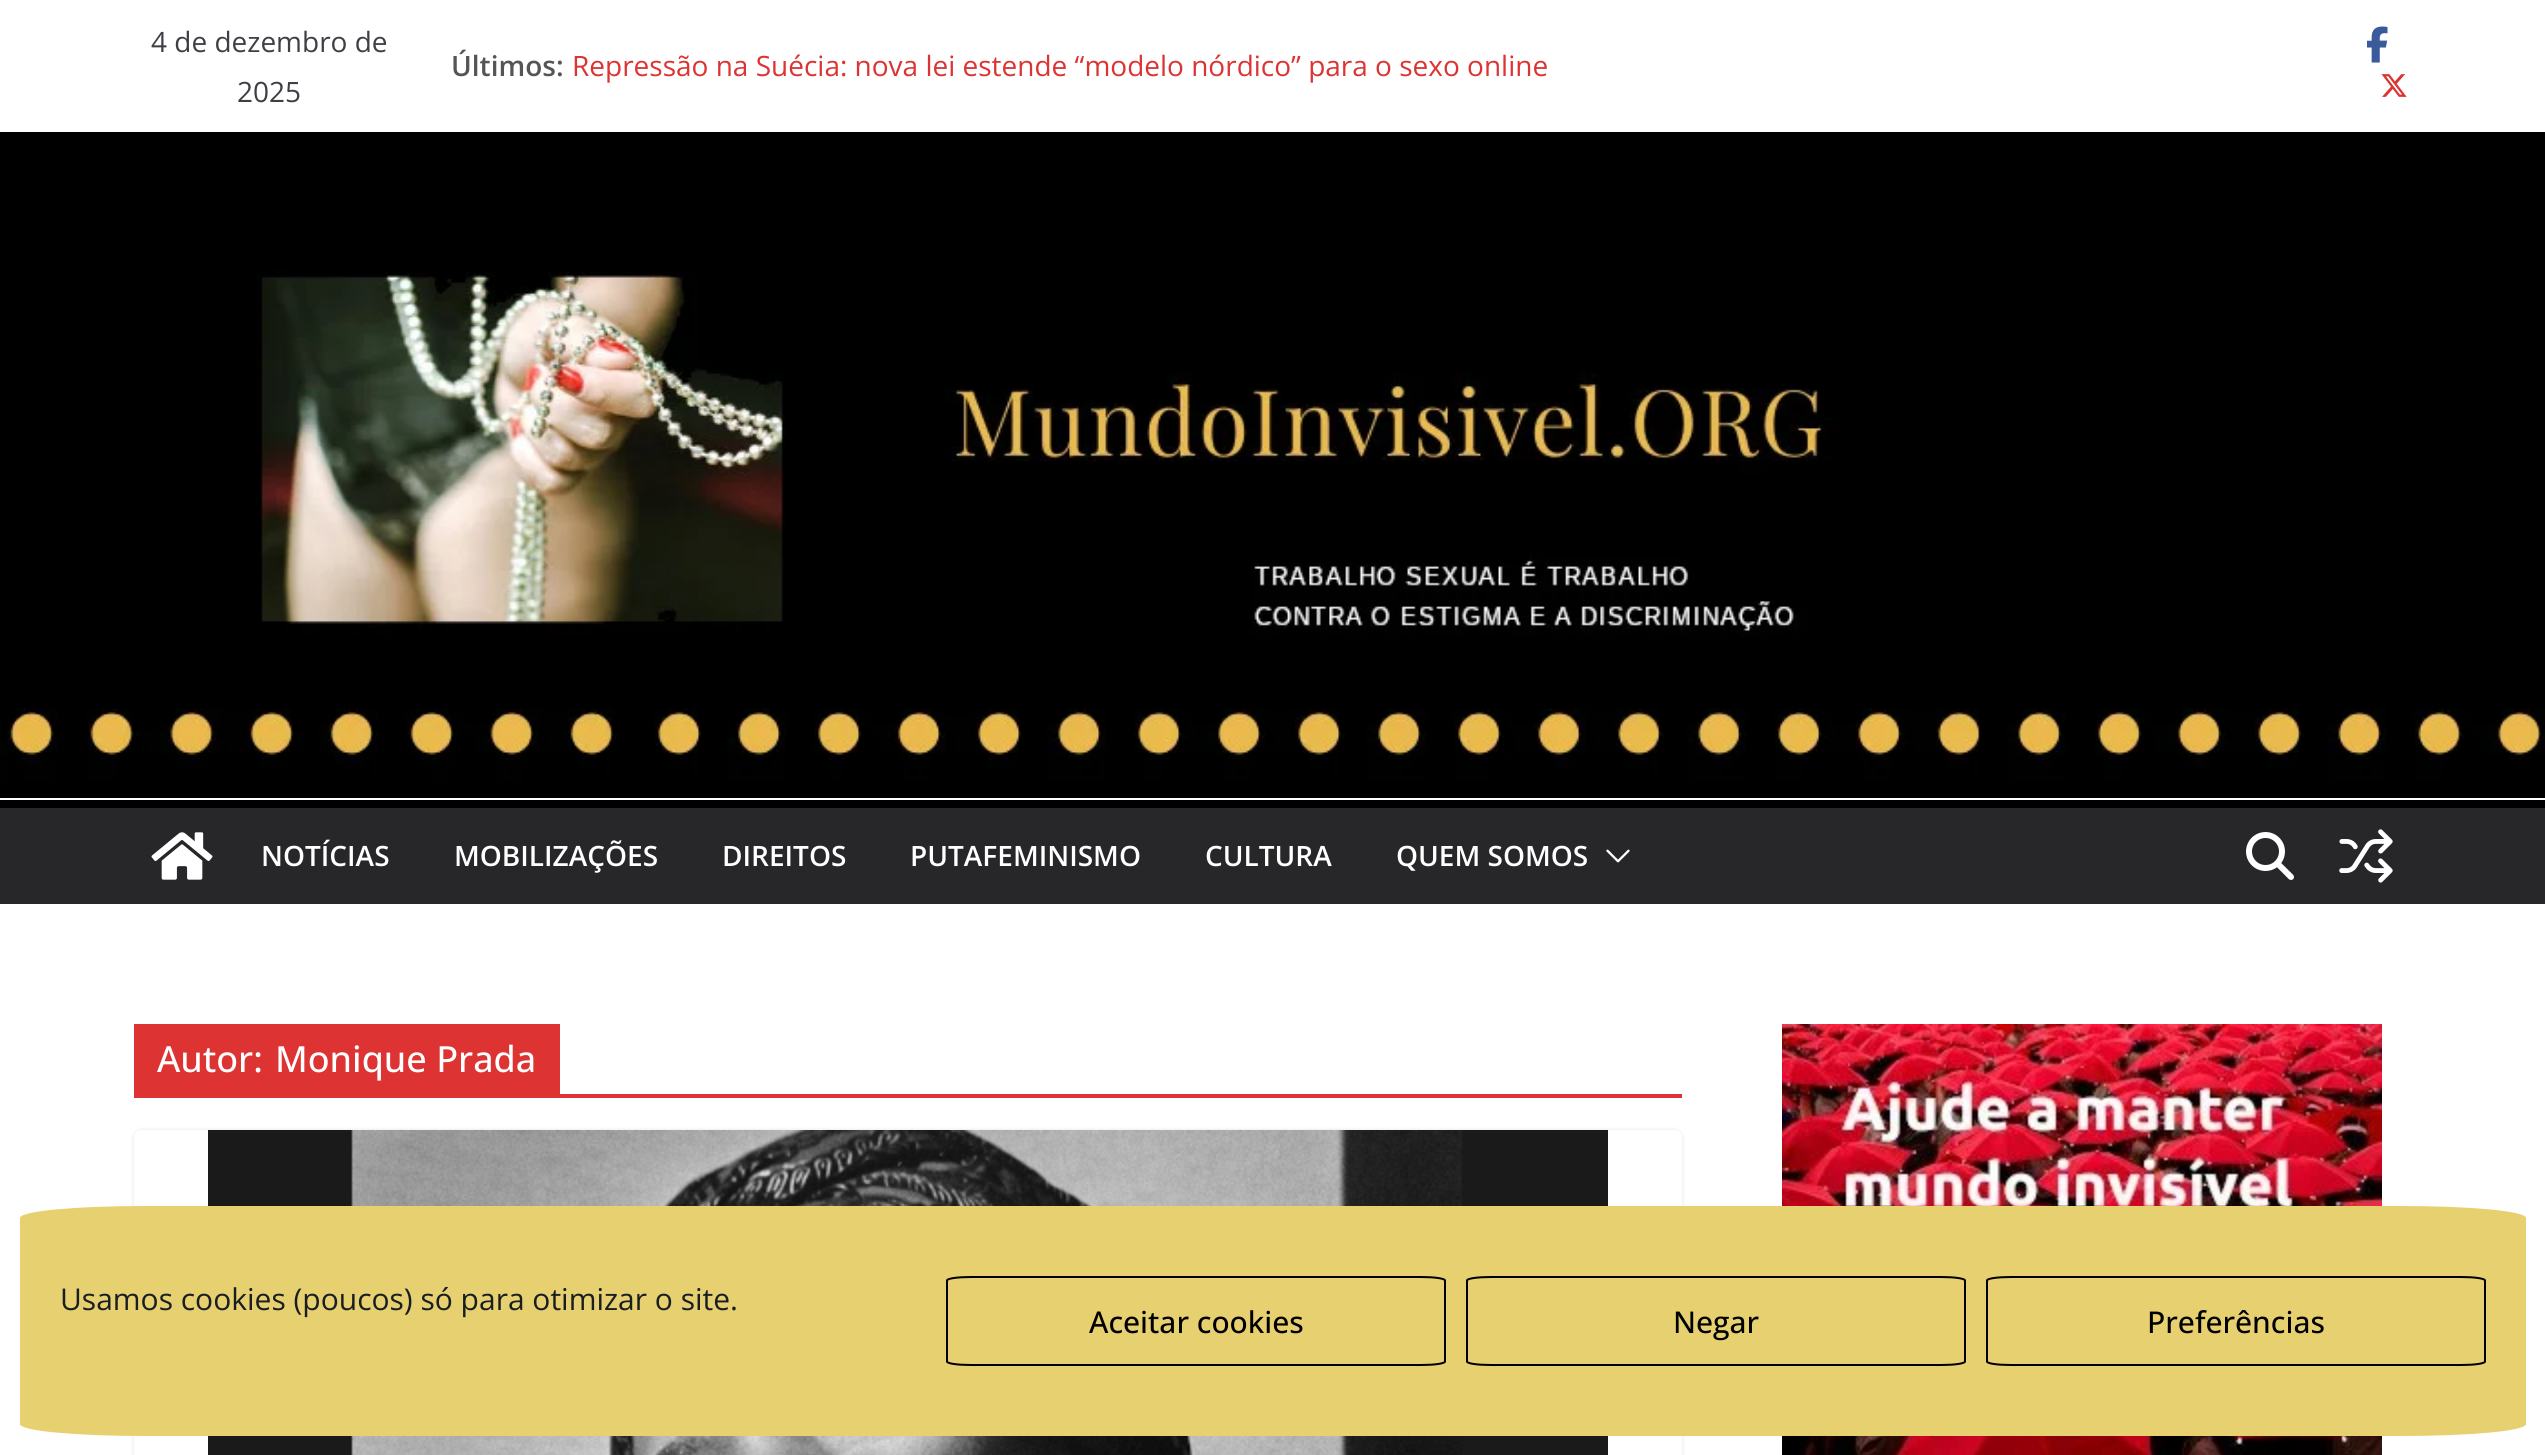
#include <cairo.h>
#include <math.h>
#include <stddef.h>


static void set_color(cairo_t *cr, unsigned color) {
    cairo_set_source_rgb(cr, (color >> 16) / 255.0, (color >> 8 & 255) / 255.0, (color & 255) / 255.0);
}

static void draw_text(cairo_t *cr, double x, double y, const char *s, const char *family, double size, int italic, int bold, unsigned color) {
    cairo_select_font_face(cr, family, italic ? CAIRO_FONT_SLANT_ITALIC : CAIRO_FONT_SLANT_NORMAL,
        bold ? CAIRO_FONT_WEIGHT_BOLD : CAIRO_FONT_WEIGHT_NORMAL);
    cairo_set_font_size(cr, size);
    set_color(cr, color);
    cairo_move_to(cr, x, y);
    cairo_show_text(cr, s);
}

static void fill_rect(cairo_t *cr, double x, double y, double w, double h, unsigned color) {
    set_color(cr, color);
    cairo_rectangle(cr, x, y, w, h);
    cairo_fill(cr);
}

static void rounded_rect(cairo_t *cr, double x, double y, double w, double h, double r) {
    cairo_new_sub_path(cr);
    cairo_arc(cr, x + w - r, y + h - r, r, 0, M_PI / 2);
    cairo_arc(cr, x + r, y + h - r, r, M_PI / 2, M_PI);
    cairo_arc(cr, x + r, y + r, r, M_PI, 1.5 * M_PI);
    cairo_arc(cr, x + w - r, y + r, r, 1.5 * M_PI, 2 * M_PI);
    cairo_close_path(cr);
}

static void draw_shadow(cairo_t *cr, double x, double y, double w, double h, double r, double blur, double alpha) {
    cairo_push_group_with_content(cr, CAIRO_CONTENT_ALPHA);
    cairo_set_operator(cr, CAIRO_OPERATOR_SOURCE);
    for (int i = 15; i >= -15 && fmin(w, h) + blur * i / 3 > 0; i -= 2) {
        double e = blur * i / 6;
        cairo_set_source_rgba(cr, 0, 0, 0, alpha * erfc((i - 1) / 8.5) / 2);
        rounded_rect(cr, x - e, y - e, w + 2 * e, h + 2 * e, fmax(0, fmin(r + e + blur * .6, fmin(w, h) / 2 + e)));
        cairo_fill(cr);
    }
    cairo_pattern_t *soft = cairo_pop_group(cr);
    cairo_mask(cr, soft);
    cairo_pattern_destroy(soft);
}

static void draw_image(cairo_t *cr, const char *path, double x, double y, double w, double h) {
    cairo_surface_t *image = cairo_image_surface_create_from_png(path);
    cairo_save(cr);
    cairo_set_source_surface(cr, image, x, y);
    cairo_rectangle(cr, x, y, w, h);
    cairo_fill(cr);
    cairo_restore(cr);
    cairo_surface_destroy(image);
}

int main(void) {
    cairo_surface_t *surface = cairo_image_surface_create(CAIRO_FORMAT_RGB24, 2545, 1455);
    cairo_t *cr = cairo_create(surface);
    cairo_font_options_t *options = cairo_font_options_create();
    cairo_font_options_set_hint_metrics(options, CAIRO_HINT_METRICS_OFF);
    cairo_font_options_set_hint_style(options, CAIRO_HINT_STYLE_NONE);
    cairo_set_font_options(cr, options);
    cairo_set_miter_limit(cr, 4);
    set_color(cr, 0xFFFFFF);
    cairo_paint(cr);
    draw_text(cr, 151, 52, "4 de dezembro de", "Open Sans", 28, 0, 0, 0x3F3F46);
    draw_text(cr, 237, 102, "2025", "Open Sans", 28, 0, 0, 0x3F3F46);
    draw_text(cr, 451, 76, "Últimos:", "Open Sans SemiBold", 28, 0, 0, 0x555555);
    draw_text(cr, 572, 76, "Repressão na Suécia: nova lei estende “modelo nórdico” para o sexo online", "Open Sans", 28, 0, 0, 0xDD3333);
    draw_image(cr, "assets/img1.png", 2367, 26, 21, 37);
    draw_image(cr, "assets/img2.png", 2381, 74, 26, 23);
    fill_rect(cr, 0, 132, 2545, 96, 0x000000);
    draw_image(cr, "assets/img3.png", 0, 228, 2545, 570);
    fill_rect(cr, 0, 808, 2545, 96, 0x27272A);
    fill_rect(cr, 0, 800, 2545, 8, 0x000000);
    draw_image(cr, "assets/img4.png", 151, 832, 62, 48);
    draw_text(cr, 261, 866, "NOTÍCIAS", "Open Sans SemiBold", 28, 0, 0, 0xFFFFFF);
    draw_text(cr, 454, 866, "MOBILIZAÇÕES", "Open Sans SemiBold", 28, 0, 0, 0xFFFFFF);
    draw_text(cr, 722, 866, "DIREITOS", "Open Sans SemiBold", 28, 0, 0, 0xFFFFFF);
    draw_text(cr, 910, 866, "PUTAFEMINISMO", "Open Sans SemiBold", 28, 0, 0, 0xFFFFFF);
    draw_text(cr, 1205, 866, "CULTURA", "Open Sans SemiBold", 28, 0, 0, 0xFFFFFF);
    draw_text(cr, 1396, 866, "QUEM SOMOS", "Open Sans SemiBold", 28, 0, 0, 0xFFFFFF);
    draw_image(cr, "assets/img5.png", 1606, 849, 24, 14);
    draw_image(cr, "assets/img6.png", 2246, 832, 48, 48);
    draw_image(cr, "assets/img7.png", 2339, 829, 54, 54);
    fill_rect(cr, 134, 1094, 1548, 4, 0xDD3333);
    fill_rect(cr, 134, 1024, 426, 70, 0xDD3333);
    draw_text(cr, 157, 1072, "Autor:", "Open Sans Medium", 36, 0, 0, 0xFFFFFF);
    draw_text(cr, 275, 1072, "Monique Prada", "Open Sans Medium", 36, 0, 0, 0xFFFFFF);
    cairo_save(cr);
    cairo_set_fill_rule(cr, CAIRO_FILL_RULE_EVEN_ODD);
    cairo_new_path(cr);
    cairo_move_to(cr, 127, 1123);
    cairo_line_to(cr, 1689, 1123);
    cairo_line_to(cr, 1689, 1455);
    cairo_line_to(cr, 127, 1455);
    cairo_close_path(cr);
    cairo_move_to(cr, 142, 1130);
    cairo_line_to(cr, 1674, 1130);
    cairo_curve_to(cr, 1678.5, 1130, 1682, 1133.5, 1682, 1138);
    cairo_line_to(cr, 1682, 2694);
    cairo_curve_to(cr, 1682, 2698.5, 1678.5, 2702, 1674, 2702);
    cairo_line_to(cr, 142, 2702);
    cairo_curve_to(cr, 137.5, 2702, 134, 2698.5, 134, 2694);
    cairo_line_to(cr, 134, 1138);
    cairo_curve_to(cr, 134, 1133.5, 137.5, 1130, 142, 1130);
    cairo_close_path(cr);
    cairo_clip(cr);
    set_color(cr, 0xE4E4E7);
    draw_shadow(cr, 134, 1130, 1548, 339, 8, 2, 1);
    cairo_restore(cr);
    draw_image(cr, "assets/img8.png", 208, 1130, 1400, 325);
    draw_image(cr, "assets/img9.png", 1782, 1024, 600, 431);
    set_color(cr, 0xE6D06F);
    cairo_new_path(cr);
    cairo_move_to(cr, 145, 1206);
    cairo_line_to(cr, 2401, 1206);
    cairo_curve_to(cr, 2470, 1206, 2526, 1211, 2526, 1218);
    cairo_line_to(cr, 2526, 1424);
    cairo_curve_to(cr, 2526, 1431, 2470, 1436, 2401, 1436);
    cairo_line_to(cr, 145, 1436);
    cairo_curve_to(cr, 76, 1436, 20, 1431, 20, 1424);
    cairo_line_to(cr, 20, 1218);
    cairo_curve_to(cr, 20, 1211, 76, 1206, 145, 1206);
    cairo_close_path(cr);
    cairo_fill(cr);
    draw_text(cr, 60, 1310, "Usamos cookies (poucos) só para otimizar o site.", "Open Sans", 30, 0, 0, 0x191E23);
    cairo_new_path(cr);
    cairo_move_to(cr, 971, 1277);
    cairo_line_to(cr, 1421, 1277);
    cairo_curve_to(cr, 1434.5, 1277, 1445, 1278.5, 1445, 1280.5);
    cairo_line_to(cr, 1445, 1361.5);
    cairo_curve_to(cr, 1445, 1363.5, 1434.5, 1365, 1421, 1365);
    cairo_line_to(cr, 971, 1365);
    cairo_curve_to(cr, 957.5, 1365, 947, 1363.5, 947, 1361.5);
    cairo_line_to(cr, 947, 1280.5);
    cairo_curve_to(cr, 947, 1278.5, 957.5, 1277, 971, 1277);
    cairo_close_path(cr);
    set_color(cr, 0x000000);
    cairo_stroke(cr);
    draw_text(cr, 1089, 1333, "Aceitar cookies", "Open Sans Medium", 30, 0, 0, 0x000000);
    cairo_new_path(cr);
    cairo_move_to(cr, 1491, 1277);
    cairo_line_to(cr, 1941, 1277);
    cairo_curve_to(cr, 1954.5, 1277, 1965, 1278.5, 1965, 1280.5);
    cairo_line_to(cr, 1965, 1361.5);
    cairo_curve_to(cr, 1965, 1363.5, 1954.5, 1365, 1941, 1365);
    cairo_line_to(cr, 1491, 1365);
    cairo_curve_to(cr, 1477.5, 1365, 1467, 1363.5, 1467, 1361.5);
    cairo_line_to(cr, 1467, 1280.5);
    cairo_curve_to(cr, 1467, 1278.5, 1477.5, 1277, 1491, 1277);
    cairo_close_path(cr);
    cairo_stroke(cr);
    draw_text(cr, 1673, 1333, "Negar", "Open Sans Medium", 30, 0, 0, 0x000000);
    cairo_new_path(cr);
    cairo_move_to(cr, 2011, 1277);
    cairo_line_to(cr, 2461, 1277);
    cairo_curve_to(cr, 2474.5, 1277, 2485, 1278.5, 2485, 1280.5);
    cairo_line_to(cr, 2485, 1361.5);
    cairo_curve_to(cr, 2485, 1363.5, 2474.5, 1365, 2461, 1365);
    cairo_line_to(cr, 2011, 1365);
    cairo_curve_to(cr, 1997.5, 1365, 1987, 1363.5, 1987, 1361.5);
    cairo_line_to(cr, 1987, 1280.5);
    cairo_curve_to(cr, 1987, 1278.5, 1997.5, 1277, 2011, 1277);
    cairo_close_path(cr);
    cairo_stroke(cr);
    draw_text(cr, 2147, 1333, "Preferências", "Open Sans Medium", 30, 0, 0, 0x000000);
    cairo_surface_write_to_png(surface, "output.png");
    cairo_font_options_destroy(options);
    cairo_destroy(cr);
    cairo_surface_destroy(surface);
    return 0;
}
